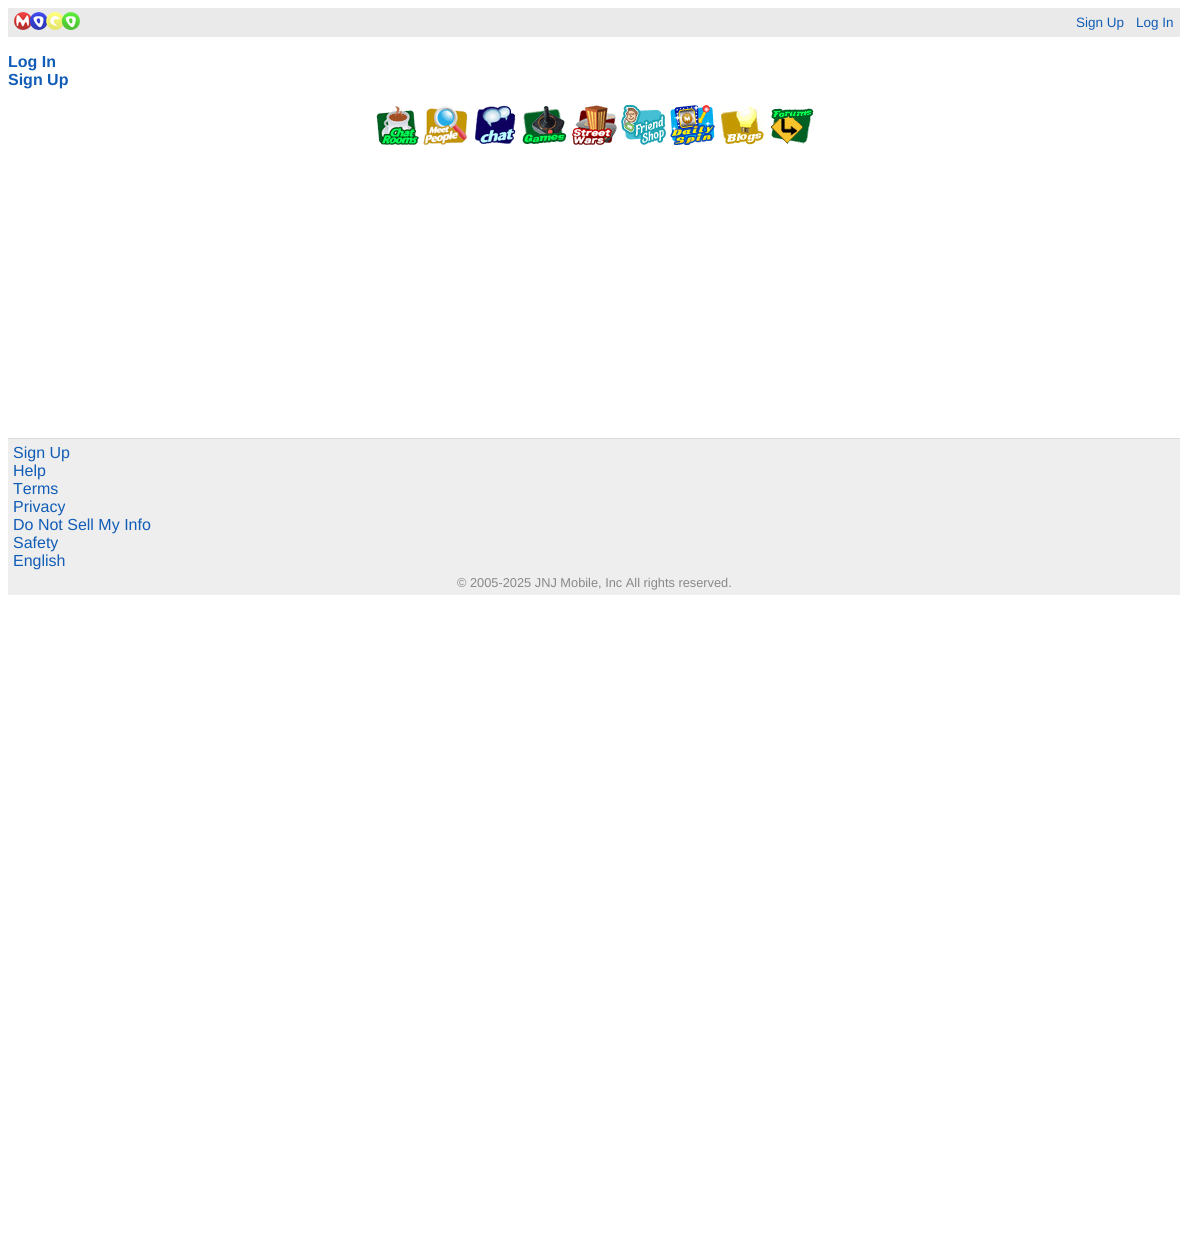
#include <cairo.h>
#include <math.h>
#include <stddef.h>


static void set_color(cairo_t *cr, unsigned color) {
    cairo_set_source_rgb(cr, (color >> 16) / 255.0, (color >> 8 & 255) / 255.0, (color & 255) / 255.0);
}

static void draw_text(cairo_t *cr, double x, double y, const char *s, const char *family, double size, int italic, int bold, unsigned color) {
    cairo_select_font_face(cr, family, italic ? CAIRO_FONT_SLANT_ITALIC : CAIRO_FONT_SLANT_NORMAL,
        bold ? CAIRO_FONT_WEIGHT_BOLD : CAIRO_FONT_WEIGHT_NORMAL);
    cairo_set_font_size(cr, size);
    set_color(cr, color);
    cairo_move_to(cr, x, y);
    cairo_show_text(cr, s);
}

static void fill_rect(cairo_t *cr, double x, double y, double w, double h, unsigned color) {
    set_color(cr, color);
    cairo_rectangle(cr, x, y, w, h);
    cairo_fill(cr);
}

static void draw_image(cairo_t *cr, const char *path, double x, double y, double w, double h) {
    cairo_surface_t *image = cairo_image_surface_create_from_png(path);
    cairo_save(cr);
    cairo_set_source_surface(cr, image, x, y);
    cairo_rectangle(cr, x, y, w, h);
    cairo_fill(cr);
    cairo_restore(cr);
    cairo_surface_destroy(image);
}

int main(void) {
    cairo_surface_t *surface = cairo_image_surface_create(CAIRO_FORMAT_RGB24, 1188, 1256);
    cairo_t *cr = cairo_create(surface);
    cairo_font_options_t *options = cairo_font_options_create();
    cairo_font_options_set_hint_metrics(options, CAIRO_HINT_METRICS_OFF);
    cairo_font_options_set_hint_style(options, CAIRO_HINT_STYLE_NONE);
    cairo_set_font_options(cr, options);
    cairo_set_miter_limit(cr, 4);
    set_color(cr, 0xFFFFFF);
    cairo_paint(cr);
    fill_rect(cr, 8, 8, 1172, 29, 0xEAEAEA);
    draw_image(cr, "assets/img1.png", 14, 12, 66, 18);
    draw_text(cr, 1076, 27, "Sign Up", "Liberation Sans", 13.5, 0, 0, 0x105CB6);
    draw_text(cr, 1136, 27, "Log In", "Liberation Sans", 13.5, 0, 0, 0x105CB6);
    draw_text(cr, 8, 67, "Log In", "Liberation Sans", 16, 0, 1, 0x105CB6);
    draw_text(cr, 8, 85, "Sign Up", "Liberation Sans", 16, 0, 1, 0x105CB6);
    draw_image(cr, "assets/img2.png", 376, 106, 43, 39);
    draw_image(cr, "assets/img3.png", 423, 106, 45, 39);
    draw_image(cr, "assets/img4.png", 474, 105, 42, 40);
    draw_image(cr, "assets/img5.png", 522, 106, 45, 38);
    draw_image(cr, "assets/img6.png", 572, 105, 45, 40);
    draw_image(cr, "assets/img7.png", 621, 105, 45, 40);
    draw_image(cr, "assets/img8.png", 670, 105, 45, 40);
    draw_image(cr, "assets/img9.png", 720, 107, 45, 38);
    draw_image(cr, "assets/img10.png", 771, 108, 43, 36);
    fill_rect(cr, 8, 439, 1172, 156, 0xEEEEEE);
    fill_rect(cr, 8, 438, 1172, 1, 0xDDDDDD);
    draw_text(cr, 13, 458, "Sign Up", "Liberation Sans", 16, 0, 0, 0x105CB6);
    draw_text(cr, 13, 476, "Help", "Liberation Sans", 16, 0, 0, 0x105CB6);
    draw_text(cr, 13, 494, "Terms", "Liberation Sans", 16, 0, 0, 0x105CB6);
    draw_text(cr, 13, 512, "Privacy", "Liberation Sans", 16, 0, 0, 0x105CB6);
    draw_text(cr, 13, 530, "Do Not Sell My Info", "Liberation Sans", 16, 0, 0, 0x105CB6);
    draw_text(cr, 13, 548, "Safety", "Liberation Sans", 16, 0, 0, 0x105CB6);
    draw_text(cr, 13, 566, "English", "Liberation Sans", 16, 0, 0, 0x105CB6);
    draw_text(cr, 457, 587, "© 2005-2025 JNJ Mobile, Inc All rights reserved.", "Liberation Sans", 12.8, 0, 0, 0x888888);
    cairo_surface_write_to_png(surface, "output.png");
    cairo_font_options_destroy(options);
    cairo_destroy(cr);
    cairo_surface_destroy(surface);
    return 0;
}
